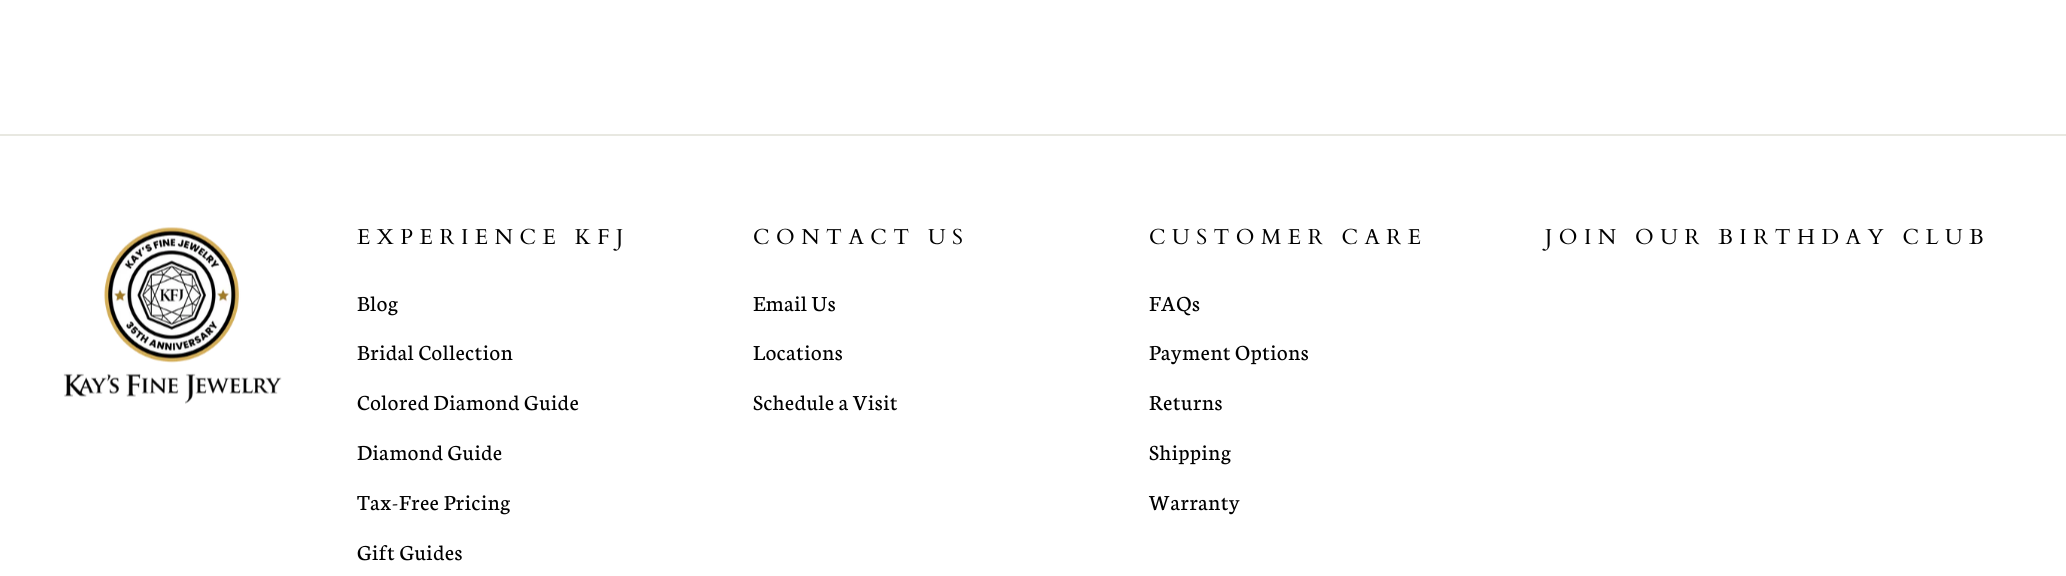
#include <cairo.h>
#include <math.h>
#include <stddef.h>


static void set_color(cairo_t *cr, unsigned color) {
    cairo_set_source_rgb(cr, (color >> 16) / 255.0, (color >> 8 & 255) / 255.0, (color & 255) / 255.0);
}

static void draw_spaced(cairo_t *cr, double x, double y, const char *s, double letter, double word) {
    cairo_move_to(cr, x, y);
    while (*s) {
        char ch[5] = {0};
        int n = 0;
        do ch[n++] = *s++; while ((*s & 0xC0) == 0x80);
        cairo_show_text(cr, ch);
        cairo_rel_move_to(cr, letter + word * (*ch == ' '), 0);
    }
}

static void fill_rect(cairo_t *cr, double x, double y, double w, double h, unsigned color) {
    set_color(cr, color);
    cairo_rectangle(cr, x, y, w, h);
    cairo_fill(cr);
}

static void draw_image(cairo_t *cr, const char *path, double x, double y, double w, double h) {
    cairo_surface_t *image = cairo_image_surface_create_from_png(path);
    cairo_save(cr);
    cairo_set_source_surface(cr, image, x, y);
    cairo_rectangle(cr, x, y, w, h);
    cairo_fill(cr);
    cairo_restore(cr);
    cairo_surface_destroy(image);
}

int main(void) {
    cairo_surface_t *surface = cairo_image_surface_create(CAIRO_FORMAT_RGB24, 2066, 576);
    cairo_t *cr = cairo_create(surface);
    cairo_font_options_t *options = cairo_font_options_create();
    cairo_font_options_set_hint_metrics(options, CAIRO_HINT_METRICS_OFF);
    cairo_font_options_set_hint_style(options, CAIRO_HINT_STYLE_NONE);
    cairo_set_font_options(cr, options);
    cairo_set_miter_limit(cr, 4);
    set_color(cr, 0xFFFFFF);
    cairo_paint(cr);
    fill_rect(cr, 0, 134, 2066, 2, 0xE8E8E1);
    draw_image(cr, "assets/img1.png", 63, 227, 219, 177);
    cairo_select_font_face(cr, "Cardo", CAIRO_FONT_SLANT_NORMAL, CAIRO_FONT_WEIGHT_NORMAL);
    cairo_set_font_size(cr, 21.6);
    set_color(cr, 0x000000);
    draw_spaced(cr, 357, 244, "EXPERIENCE KFJ", 6.5, 0);
    cairo_select_font_face(cr, "Neuton", CAIRO_FONT_SLANT_NORMAL, CAIRO_FONT_WEIGHT_NORMAL);
    cairo_set_font_size(cr, 23);
    draw_spaced(cr, 357, 311, "Blog", 0.7, 0);
    draw_spaced(cr, 357, 360, "Bridal Collection", 0.7, 0);
    draw_spaced(cr, 357, 410, "Colored Diamond Guide", 0.7, 0);
    draw_spaced(cr, 357, 460, "Diamond Guide", 0.7, 0);
    draw_spaced(cr, 357, 510, "Tax-Free Pricing", 0.7, 0);
    draw_spaced(cr, 357, 560, "Gift Guides", 0.7, 0);
    cairo_select_font_face(cr, "Cardo", CAIRO_FONT_SLANT_NORMAL, CAIRO_FONT_WEIGHT_NORMAL);
    cairo_set_font_size(cr, 21.6);
    draw_spaced(cr, 753, 244, "CONTACT US", 6.5, 0);
    cairo_select_font_face(cr, "Neuton", CAIRO_FONT_SLANT_NORMAL, CAIRO_FONT_WEIGHT_NORMAL);
    cairo_set_font_size(cr, 23);
    draw_spaced(cr, 753, 311, "Email Us", 0.7, 0);
    draw_spaced(cr, 753, 360, "Locations", 0.7, 0);
    draw_spaced(cr, 753, 410, "Schedule a Visit", 0.7, 0);
    cairo_select_font_face(cr, "Cardo", CAIRO_FONT_SLANT_NORMAL, CAIRO_FONT_WEIGHT_NORMAL);
    cairo_set_font_size(cr, 21.6);
    draw_spaced(cr, 1149, 244, "CUSTOMER CARE", 6.5, 0);
    cairo_select_font_face(cr, "Neuton", CAIRO_FONT_SLANT_NORMAL, CAIRO_FONT_WEIGHT_NORMAL);
    cairo_set_font_size(cr, 23);
    draw_spaced(cr, 1149, 311, "FAQs", 0.7, 0);
    draw_spaced(cr, 1149, 360, "Payment Options", 0.7, 0);
    draw_spaced(cr, 1149, 410, "Returns", 0.7, 0);
    draw_spaced(cr, 1149, 460, "Shipping", 0.7, 0);
    draw_spaced(cr, 1149, 510, "Warranty", 0.7, 0);
    cairo_select_font_face(cr, "Cardo", CAIRO_FONT_SLANT_NORMAL, CAIRO_FONT_WEIGHT_NORMAL);
    cairo_set_font_size(cr, 21.6);
    draw_spaced(cr, 1545, 244, "JOIN OUR BIRTHDAY CLUB", 6.5, 0);
    cairo_surface_write_to_png(surface, "output.png");
    cairo_font_options_destroy(options);
    cairo_destroy(cr);
    cairo_surface_destroy(surface);
    return 0;
}
